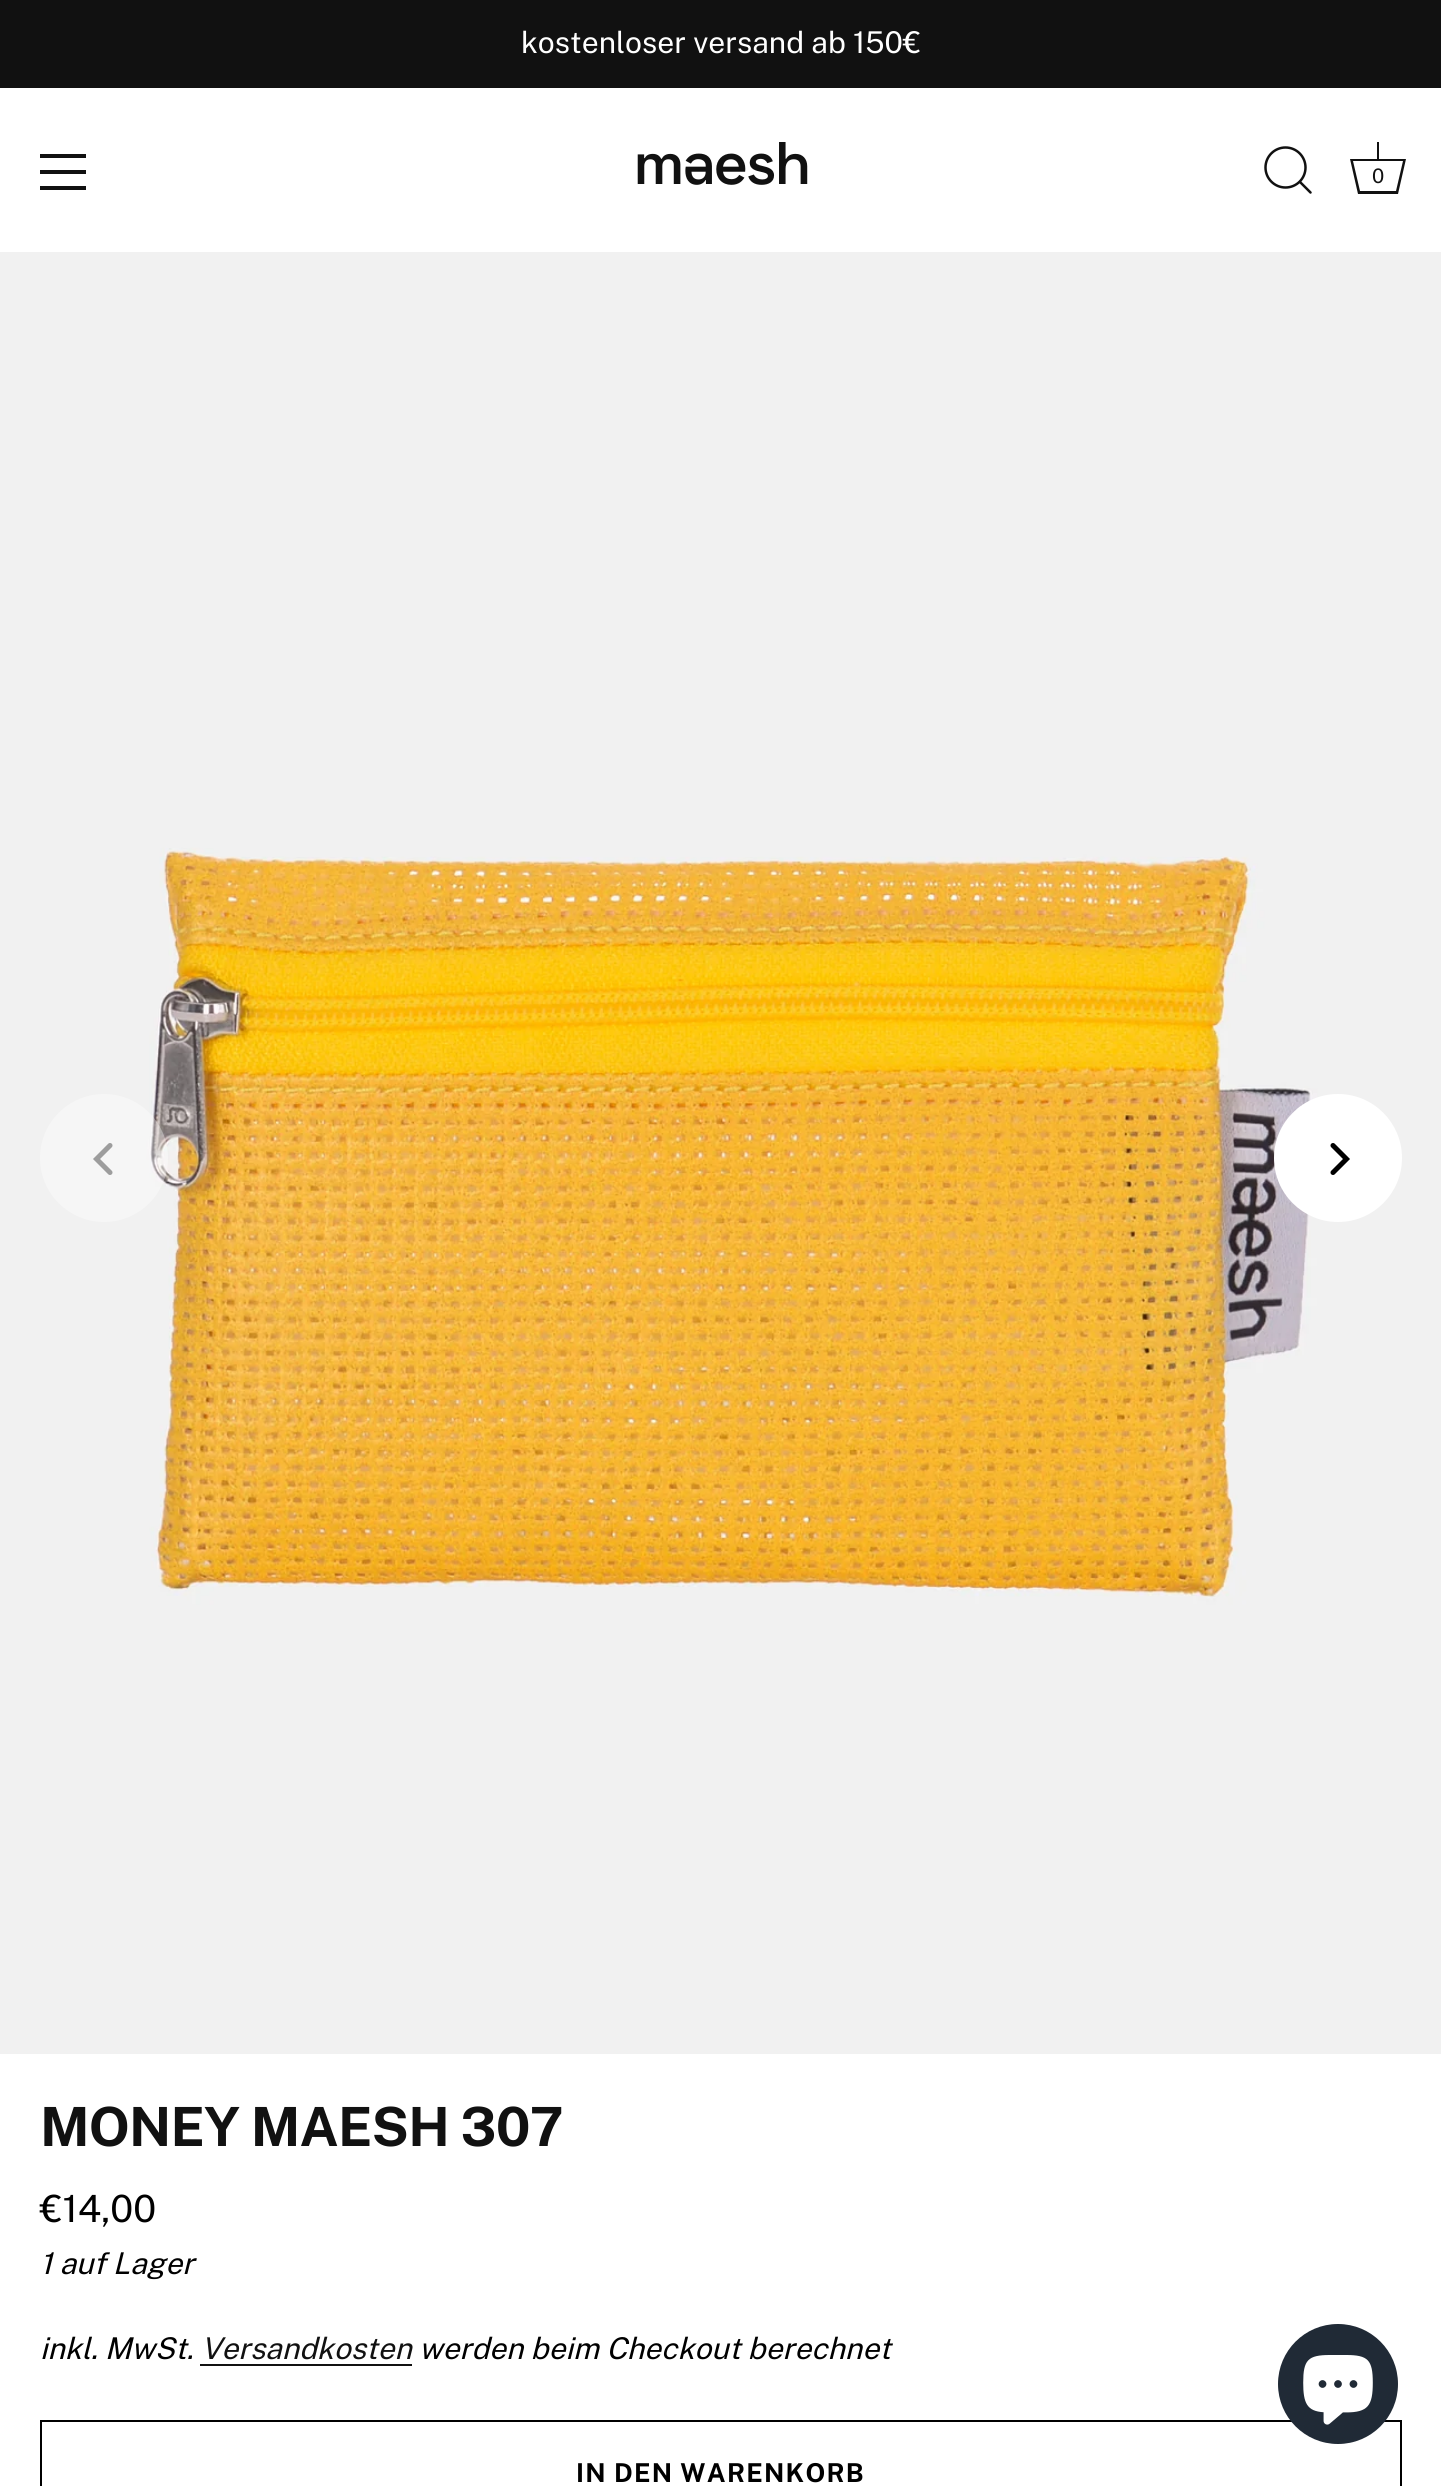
#include <cairo.h>
#include <math.h>
#include <stddef.h>


static void set_color(cairo_t *cr, unsigned color) {
    cairo_set_source_rgb(cr, (color >> 16) / 255.0, (color >> 8 & 255) / 255.0, (color & 255) / 255.0);
}

static void draw_text(cairo_t *cr, double x, double y, const char *s, const char *family, double size, int italic, int bold, unsigned color) {
    cairo_select_font_face(cr, family, italic ? CAIRO_FONT_SLANT_ITALIC : CAIRO_FONT_SLANT_NORMAL,
        bold ? CAIRO_FONT_WEIGHT_BOLD : CAIRO_FONT_WEIGHT_NORMAL);
    cairo_set_font_size(cr, size);
    set_color(cr, color);
    cairo_move_to(cr, x, y);
    cairo_show_text(cr, s);
}

static void draw_spaced(cairo_t *cr, double x, double y, const char *s, double letter, double word) {
    cairo_move_to(cr, x, y);
    while (*s) {
        char ch[5] = {0};
        int n = 0;
        do ch[n++] = *s++; while ((*s & 0xC0) == 0x80);
        cairo_show_text(cr, ch);
        cairo_rel_move_to(cr, letter + word * (*ch == ' '), 0);
    }
}

static void fill_rect(cairo_t *cr, double x, double y, double w, double h, unsigned color) {
    set_color(cr, color);
    cairo_rectangle(cr, x, y, w, h);
    cairo_fill(cr);
}

static void draw_image(cairo_t *cr, const char *path, double x, double y, double w, double h) {
    cairo_surface_t *image = cairo_image_surface_create_from_png(path);
    cairo_save(cr);
    cairo_set_source_surface(cr, image, x, y);
    cairo_rectangle(cr, x, y, w, h);
    cairo_fill(cr);
    cairo_restore(cr);
    cairo_surface_destroy(image);
}

int main(void) {
    cairo_surface_t *surface = cairo_image_surface_create(CAIRO_FORMAT_RGB24, 1441, 2486);
    cairo_t *cr = cairo_create(surface);
    cairo_font_options_t *options = cairo_font_options_create();
    cairo_font_options_set_hint_metrics(options, CAIRO_HINT_METRICS_OFF);
    cairo_font_options_set_hint_style(options, CAIRO_HINT_STYLE_NONE);
    cairo_set_font_options(cr, options);
    cairo_set_miter_limit(cr, 4);
    set_color(cr, 0xFFFFFF);
    cairo_paint(cr);
    fill_rect(cr, 0, 0, 1441, 88, 0x111111);
    draw_text(cr, 521, 53, "kostenloser versand ab 150€", "Public Sans", 30, 0, 0, 0xFFFFFF);
    fill_rect(cr, 40, 154, 46, 4, 0x111111);
    fill_rect(cr, 40, 170, 46, 4, 0x111111);
    fill_rect(cr, 40, 186, 46, 4, 0x111111);
    draw_image(cr, "assets/img1.png", 637, 142, 171, 43);
    cairo_arc(cr, 1285.5, 167.5, 20, 0, 2 * M_PI);
    cairo_set_line_width(cr, 2.5);
    cairo_stroke(cr);
    cairo_new_path(cr);
    cairo_move_to(cr, 1310.5, 192.5);
    cairo_line_to(cr, 1300, 182);
    cairo_set_line_cap(cr, CAIRO_LINE_CAP_ROUND);
    cairo_set_line_join(cr, CAIRO_LINE_JOIN_ROUND);
    cairo_stroke(cr);
    fill_rect(cr, 1377, 142, 2, 17, 0x111111);
    cairo_new_path(cr);
    cairo_move_to(cr, 1403, 161);
    cairo_line_to(cr, 1396, 191);
    cairo_line_to(cr, 1360, 191);
    cairo_line_to(cr, 1353, 161);
    cairo_line_to(cr, 1403, 161);
    cairo_move_to(cr, 1406, 159);
    cairo_line_to(cr, 1350, 159);
    cairo_line_to(cr, 1358, 194);
    cairo_line_to(cr, 1398, 194);
    cairo_close_path(cr);
    cairo_fill(cr);
    draw_text(cr, 1372, 183, "0", "Public Sans", 20, 0, 0, 0x111111);
    draw_image(cr, "assets/img2.png", 0, 252, 1441, 1802);
    cairo_set_source_rgba(cr, 1, 1, 1, 0.35);
    cairo_arc(cr, 104, 1158, 64, 0, 2 * M_PI);
    cairo_fill(cr);
    cairo_new_path(cr);
    cairo_move_to(cr, 110, 1145.5);
    cairo_line_to(cr, 96.5, 1159);
    cairo_line_to(cr, 110, 1172.5);
    set_color(cr, 0x9D9D9D);
    cairo_set_line_width(cr, 5);
    cairo_set_line_join(cr, CAIRO_LINE_JOIN_MITER);
    cairo_stroke(cr);
    set_color(cr, 0xFFFFFF);
    cairo_arc(cr, 1338, 1158, 64, 0, 2 * M_PI);
    cairo_fill(cr);
    cairo_new_path(cr);
    cairo_move_to(cr, 1333, 1172.5);
    cairo_line_to(cr, 1346.5, 1159);
    cairo_line_to(cr, 1333, 1145.5);
    set_color(cr, 0x000000);
    cairo_stroke(cr);
    cairo_select_font_face(cr, "Public Sans", CAIRO_FONT_SLANT_NORMAL, CAIRO_FONT_WEIGHT_BOLD);
    cairo_set_font_size(cr, 54);
    set_color(cr, 0x111111);
    draw_spaced(cr, 40, 2146, "MONEY MAESH 307", -0.75, 0);
    draw_text(cr, 40, 2222, "€14,00", "Public Sans", 37.5, 0, 0, 0x000000);
    draw_text(cr, 40, 2274, "1 auf Lager", "Public Sans", 30, 1, 0, 0x000000);
    draw_text(cr, 40, 2359, "inkl. MwSt.", "Public Sans", 30, 1, 0, 0x000000);
    draw_text(cr, 201, 2359, "Versandkosten", "Public Sans", 30, 1, 0, 0x111111);
    fill_rect(cr, 200, 2364, 212, 2, 0x111111);
    draw_text(cr, 419, 2359, "werden beim Checkout berechnet", "Public Sans", 30, 1, 0, 0x000000);
    cairo_rectangle(cr, 41, 2421, 1360, 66);
    cairo_set_line_width(cr, 2);
    cairo_set_line_cap(cr, CAIRO_LINE_CAP_BUTT);
    cairo_stroke(cr);
    cairo_select_font_face(cr, "Public Sans", CAIRO_FONT_SLANT_NORMAL, CAIRO_FONT_WEIGHT_BOLD);
    cairo_set_font_size(cr, 26);
    draw_spaced(cr, 576, 2482, "IN DEN WARENKORB", 1.25, 0);
    set_color(cr, 0x202A36);
    cairo_new_path(cr);
    cairo_arc(cr, 1338, 2384, 60, 0, 2 * M_PI);
    cairo_fill(cr);
    draw_image(cr, "assets/img3.png", 1303, 2355, 70, 70);
    cairo_surface_write_to_png(surface, "output.png");
    cairo_font_options_destroy(options);
    cairo_destroy(cr);
    cairo_surface_destroy(surface);
    return 0;
}
